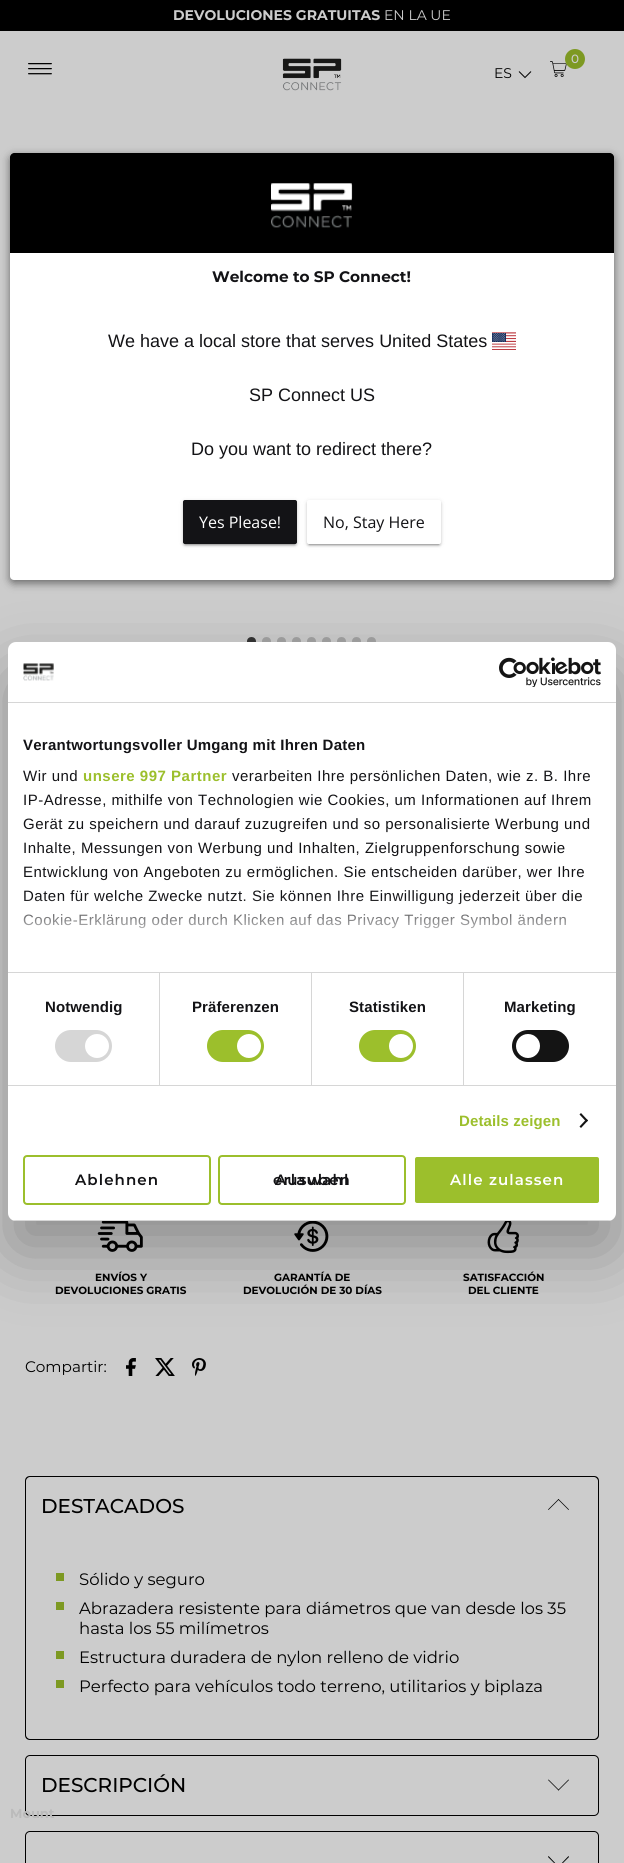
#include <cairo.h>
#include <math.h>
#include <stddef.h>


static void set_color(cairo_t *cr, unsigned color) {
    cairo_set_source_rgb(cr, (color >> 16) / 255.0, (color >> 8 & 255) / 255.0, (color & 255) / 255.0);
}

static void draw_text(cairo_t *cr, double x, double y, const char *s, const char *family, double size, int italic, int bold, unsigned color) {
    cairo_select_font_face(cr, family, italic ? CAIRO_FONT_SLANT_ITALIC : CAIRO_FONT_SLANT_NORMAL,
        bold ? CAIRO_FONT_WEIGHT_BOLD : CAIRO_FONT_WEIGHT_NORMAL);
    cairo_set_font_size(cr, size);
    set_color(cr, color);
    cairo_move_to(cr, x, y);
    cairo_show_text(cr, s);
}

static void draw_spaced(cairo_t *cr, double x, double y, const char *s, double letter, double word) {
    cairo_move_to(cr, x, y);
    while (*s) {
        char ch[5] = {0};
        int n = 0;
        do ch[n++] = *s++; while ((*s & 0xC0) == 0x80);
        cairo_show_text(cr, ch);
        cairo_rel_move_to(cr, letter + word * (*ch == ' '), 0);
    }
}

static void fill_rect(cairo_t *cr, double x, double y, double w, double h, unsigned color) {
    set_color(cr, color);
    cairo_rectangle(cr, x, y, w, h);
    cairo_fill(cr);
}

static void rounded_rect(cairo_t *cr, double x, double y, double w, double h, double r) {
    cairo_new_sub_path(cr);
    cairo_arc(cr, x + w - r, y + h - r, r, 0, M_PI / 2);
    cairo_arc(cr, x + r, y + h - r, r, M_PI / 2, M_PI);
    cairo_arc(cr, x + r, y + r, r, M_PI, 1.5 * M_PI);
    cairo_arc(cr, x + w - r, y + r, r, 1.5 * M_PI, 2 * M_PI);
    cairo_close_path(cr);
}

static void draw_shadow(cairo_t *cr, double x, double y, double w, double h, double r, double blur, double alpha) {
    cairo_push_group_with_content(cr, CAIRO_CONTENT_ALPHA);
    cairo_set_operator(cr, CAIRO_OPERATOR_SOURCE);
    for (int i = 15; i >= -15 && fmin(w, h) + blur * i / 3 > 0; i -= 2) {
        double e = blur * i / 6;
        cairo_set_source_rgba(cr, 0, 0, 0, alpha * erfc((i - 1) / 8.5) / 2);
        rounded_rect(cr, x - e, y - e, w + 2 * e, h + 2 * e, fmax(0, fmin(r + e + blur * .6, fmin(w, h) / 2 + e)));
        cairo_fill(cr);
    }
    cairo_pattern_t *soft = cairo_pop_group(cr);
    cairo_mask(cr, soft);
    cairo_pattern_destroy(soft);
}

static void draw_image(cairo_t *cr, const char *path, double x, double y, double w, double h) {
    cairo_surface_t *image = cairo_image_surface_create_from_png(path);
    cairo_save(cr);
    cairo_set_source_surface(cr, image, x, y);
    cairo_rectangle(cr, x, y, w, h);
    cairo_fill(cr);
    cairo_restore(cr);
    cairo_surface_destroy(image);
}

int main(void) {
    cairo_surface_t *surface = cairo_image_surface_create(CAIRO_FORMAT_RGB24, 624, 1863);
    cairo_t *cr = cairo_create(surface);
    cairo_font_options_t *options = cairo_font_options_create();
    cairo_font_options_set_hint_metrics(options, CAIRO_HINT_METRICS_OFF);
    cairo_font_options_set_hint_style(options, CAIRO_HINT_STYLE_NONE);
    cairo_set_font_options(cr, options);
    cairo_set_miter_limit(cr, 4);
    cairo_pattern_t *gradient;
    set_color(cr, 0xCCCCCC);
    cairo_paint(cr);
    fill_rect(cr, 0, 0, 624, 31, 0x000000);
    draw_text(cr, 173, 20, "DEVOLUCIONES GRATUITAS", "Montserrat", 14, 0, 1, 0xCCCCCC);
    draw_text(cr, 384, 20, "EN LA UE", "Montserrat", 14, 0, 0, 0xCCCCCC);
    draw_image(cr, "assets/img1.png", 28, 63, 24, 12);
    draw_image(cr, "assets/img2.png", 282, 58, 60, 33);
    draw_image(cr, "assets/img3.png", 550, 61, 17, 16);
    set_color(cr, 0x7D9922);
    cairo_arc(cr, 575, 59, 10, 0, 2 * M_PI);
    cairo_fill(cr);
    draw_text(cr, 571, 63, "0", "Montserrat Medium", 12, 0, 0, 0xCCCCCC);
    draw_text(cr, 494, 78, "ES", "Montserrat", 14, 0, 0, 0x000000);
    cairo_new_path(cr);
    cairo_move_to(cr, 519, 71.5);
    cairo_line_to(cr, 525, 77.5);
    cairo_line_to(cr, 531, 71.5);
    cairo_set_line_width(cr, 1);
    cairo_stroke(cr);
    set_color(cr, 0x333333);
    cairo_arc(cr, 251.5, 641.5, 4.5, 0, 2 * M_PI);
    cairo_fill(cr);
    set_color(cr, 0xA3A3A3);
    cairo_arc(cr, 266.5, 641.5, 4.5, 0, 2 * M_PI);
    cairo_fill(cr);
    cairo_arc(cr, 281.5, 641.5, 4.5, 0, 2 * M_PI);
    cairo_fill(cr);
    cairo_arc(cr, 296.5, 641.5, 4.5, 0, 2 * M_PI);
    cairo_fill(cr);
    cairo_arc(cr, 311.5, 641.5, 4.5, 0, 2 * M_PI);
    cairo_fill(cr);
    cairo_arc(cr, 326.5, 641.5, 4.5, 0, 2 * M_PI);
    cairo_fill(cr);
    cairo_arc(cr, 341.5, 641.5, 4.5, 0, 2 * M_PI);
    cairo_fill(cr);
    cairo_arc(cr, 356.5, 641.5, 4.5, 0, 2 * M_PI);
    cairo_fill(cr);
    cairo_arc(cr, 371.5, 641.5, 4.5, 0, 2 * M_PI);
    cairo_fill(cr);
    draw_image(cr, "assets/img4.png", 97, 1221, 46, 31);
    draw_text(cr, 95, 1281, "ENVÍOS Y", "Montserrat", 10.4, 0, 1, 0x000000);
    draw_text(cr, 55, 1294, "DEVOLUCIONES GRATIS", "Montserrat", 10.4, 0, 1, 0x000000);
    draw_image(cr, "assets/img5.png", 294, 1221, 35, 31);
    draw_text(cr, 274, 1281, "GARANTÍA DE", "Montserrat", 10.4, 0, 1, 0x000000);
    draw_text(cr, 243, 1294, "DEVOLUCIÓN DE 30 DÍAS", "Montserrat", 10.4, 0, 1, 0x000000);
    draw_image(cr, "assets/img6.png", 487, 1221, 32, 33);
    draw_text(cr, 463, 1281, "SATISFACCIÓN", "Montserrat", 10.4, 0, 1, 0x000000);
    draw_text(cr, 468, 1294, "DEL CLIENTE", "Montserrat", 10.4, 0, 1, 0x000000);
    draw_text(cr, 25, 1372, "Compartir:", "Montserrat", 15.25, 0, 0, 0x000000);
    draw_image(cr, "assets/img7.png", 126, 1358, 10, 18);
    draw_image(cr, "assets/img8.png", 155, 1358, 20, 18);
    draw_image(cr, "assets/img9.png", 192, 1358, 14, 18);
    rounded_rect(cr, 25.5, 1755.5, 573, 60, 4.5);
    cairo_stroke(cr);
    draw_text(cr, 10, 1818, "Mount", "Montserrat", 13, 0, 1, 0xBBBBBB);
    set_color(cr, 0x000000);
    cairo_set_fill_rule(cr, CAIRO_FILL_RULE_EVEN_ODD);
    cairo_new_path(cr);
    cairo_move_to(cr, 30, 1476);
    cairo_line_to(cr, 594, 1476);
    cairo_curve_to(cr, 597, 1476, 599, 1478, 599, 1481);
    cairo_line_to(cr, 599, 1537);
    cairo_line_to(cr, 25, 1537);
    cairo_line_to(cr, 25, 1481);
    cairo_curve_to(cr, 25, 1478, 27, 1476, 30, 1476);
    cairo_close_path(cr);
    cairo_move_to(cr, 30, 1477);
    cairo_line_to(cr, 594, 1477);
    cairo_curve_to(cr, 596, 1477, 598, 1479, 598, 1481);
    cairo_line_to(cr, 598, 1537);
    cairo_line_to(cr, 26, 1537);
    cairo_line_to(cr, 26, 1481);
    cairo_curve_to(cr, 26, 1479, 28, 1477, 30, 1477);
    cairo_close_path(cr);
    cairo_fill(cr);
    draw_text(cr, 41, 1513, "DESTACADOS", "Montserrat Medium", 20, 0, 0, 0x000000);
    cairo_set_fill_rule(cr, CAIRO_FILL_RULE_WINDING);
    cairo_new_path(cr);
    cairo_move_to(cr, 548.5, 1510);
    cairo_line_to(cr, 548, 1509.5);
    cairo_line_to(cr, 558.5, 1499);
    cairo_line_to(cr, 559, 1499.5);
    cairo_close_path(cr);
    cairo_fill(cr);
    cairo_new_path(cr);
    cairo_move_to(cr, 568.5, 1510);
    cairo_line_to(cr, 558, 1499.5);
    cairo_line_to(cr, 558.5, 1499);
    cairo_line_to(cr, 569, 1509.5);
    cairo_close_path(cr);
    cairo_fill(cr);
    cairo_set_fill_rule(cr, CAIRO_FILL_RULE_EVEN_ODD);
    cairo_new_path(cr);
    cairo_move_to(cr, 25, 1537);
    cairo_line_to(cr, 599, 1537);
    cairo_line_to(cr, 599, 1735);
    cairo_curve_to(cr, 599, 1738, 597, 1740, 594, 1740);
    cairo_line_to(cr, 30, 1740);
    cairo_curve_to(cr, 27, 1740, 25, 1738, 25, 1735);
    cairo_close_path(cr);
    cairo_move_to(cr, 26, 1537);
    cairo_line_to(cr, 598, 1537);
    cairo_line_to(cr, 598, 1735);
    cairo_curve_to(cr, 598, 1737, 596, 1739, 594, 1739);
    cairo_line_to(cr, 30, 1739);
    cairo_curve_to(cr, 28, 1739, 26, 1737, 26, 1735);
    cairo_close_path(cr);
    cairo_fill(cr);
    fill_rect(cr, 56, 1573, 8, 8, 0x7D9922);
    draw_text(cr, 79, 1585, "Sólido y seguro", "Montserrat", 16.5, 0, 0, 0x000000);
    fill_rect(cr, 56, 1602, 8, 8, 0x7D9922);
    draw_text(cr, 79, 1614, "Abrazadera resistente para diámetros que van desde los 35", "Montserrat", 16.5, 0, 0, 0x000000);
    draw_text(cr, 79, 1634, "hasta los 55 milímetros", "Montserrat", 16.5, 0, 0, 0x000000);
    fill_rect(cr, 56, 1651, 8, 8, 0x7D9922);
    draw_text(cr, 79, 1663, "Estructura duradera de nylon relleno de vidrio", "Montserrat", 16.5, 0, 0, 0x000000);
    fill_rect(cr, 56, 1680, 8, 8, 0x7D9922);
    draw_text(cr, 79, 1692, "Perfecto para vehículos todo terreno, utilitarios y biplaza", "Montserrat", 16.5, 0, 0, 0x000000);
    draw_text(cr, 41, 1792, "DESCRIPCIÓN", "Montserrat Medium", 20, 0, 0, 0x000000);
    cairo_set_fill_rule(cr, CAIRO_FILL_RULE_WINDING);
    cairo_new_path(cr);
    cairo_move_to(cr, 568.5, 1779.5);
    cairo_line_to(cr, 569, 1780);
    cairo_line_to(cr, 558.5, 1790.5);
    cairo_line_to(cr, 558, 1790);
    cairo_close_path(cr);
    cairo_fill(cr);
    cairo_new_path(cr);
    cairo_move_to(cr, 548.5, 1779.5);
    cairo_line_to(cr, 559, 1790);
    cairo_line_to(cr, 558.5, 1790.5);
    cairo_line_to(cr, 548, 1780);
    cairo_close_path(cr);
    cairo_fill(cr);
    rounded_rect(cr, 25.5, 1831.5, 573, 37, 4.5);
    cairo_stroke(cr);
    cairo_new_path(cr);
    cairo_move_to(cr, 568.5, 1856);
    cairo_line_to(cr, 569, 1857);
    cairo_line_to(cr, 558.5, 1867.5);
    cairo_line_to(cr, 558, 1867);
    cairo_close_path(cr);
    cairo_move_to(cr, 548.5, 1856);
    cairo_line_to(cr, 559, 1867);
    cairo_line_to(cr, 558.5, 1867.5);
    cairo_line_to(cr, 548, 1857);
    cairo_close_path(cr);
    cairo_fill(cr);
    set_color(cr, 0x000000);
    draw_shadow(cr, 10, 156, 604, 427, 4, 4.5, 0.5);
    set_color(cr, 0xFFFFFF);
    rounded_rect(cr, 10, 153, 604, 427, 4);
    cairo_fill(cr);
    set_color(cr, 0x000000);
    cairo_new_path(cr);
    cairo_move_to(cr, 14, 153);
    cairo_line_to(cr, 610, 153);
    cairo_curve_to(cr, 612, 153, 614, 155, 614, 157);
    cairo_line_to(cr, 614, 253);
    cairo_line_to(cr, 10, 253);
    cairo_line_to(cr, 10, 157);
    cairo_curve_to(cr, 10, 155, 12, 153, 14, 153);
    cairo_close_path(cr);
    cairo_fill(cr);
    draw_image(cr, "assets/img10.png", 271, 183, 82, 45);
    draw_text(cr, 212, 282, "Welcome to SP Connect!", "Montserrat", 15.25, 0, 1, 0x131316);
    draw_text(cr, 108, 347, "We have a local store that serves United States", "Liberation Sans", 18, 0, 0, 0x131316);
    draw_image(cr, "assets/img11.png", 492, 332, 24, 18);
    draw_text(cr, 249, 401, "SP Connect US", "Liberation Sans", 18, 0, 0, 0x131316);
    draw_text(cr, 191, 455, "Do you want to redirect there?", "Liberation Sans", 18, 0, 0, 0x131316);
    set_color(cr, 0x000000);
    draw_shadow(cr, 183, 501, 114, 44, 2, 2.5, 0.12);
    draw_shadow(cr, 185, 505, 110, 40, 0, 0.5, 0.2);
    draw_shadow(cr, 183, 502, 114, 44, 2, 1, 0.14);
    set_color(cr, 0x131316);
    rounded_rect(cr, 183.5, 500.5, 113, 43, 1.5);
    cairo_fill_preserve(cr);
    cairo_stroke(cr);
    draw_text(cr, 199, 528, "Yes Please!", "Open Sans", 16, 0, 0, 0xFFFFFF);
    set_color(cr, 0x000000);
    draw_shadow(cr, 307, 501, 134, 44, 2, 2.5, 0.12);
    draw_shadow(cr, 309, 505, 130, 40, 0, 0.5, 0.2);
    draw_shadow(cr, 307, 502, 134, 44, 2, 1, 0.14);
    set_color(cr, 0xFFFFFF);
    rounded_rect(cr, 307.5, 500.5, 133, 43, 1.5);
    cairo_fill_preserve(cr);
    cairo_stroke(cr);
    draw_text(cr, 323, 528, "No, Stay Here", "Open Sans", 16, 0, 0, 0x131316);
    set_color(cr, 0x000000);
    draw_shadow(cr, 8, 674, 608, 579, 8, 34, 0.3);
    set_color(cr, 0xFFFFFF);
    rounded_rect(cr, 8, 642, 608, 579, 8);
    cairo_fill(cr);
    fill_rect(cr, 8, 702, 608, 1, 0xD6D6D6);
    draw_image(cr, "assets/img12.png", 23, 663, 31, 18);
    draw_image(cr, "assets/img13.png", 499, 657, 102, 30);
    fill_rect(cr, 8, 972, 608, 1, 0xD6D6D6);
    cairo_select_font_face(cr, "Liberation Sans", CAIRO_FONT_SLANT_NORMAL, CAIRO_FONT_WEIGHT_BOLD);
    cairo_set_font_size(cr, 15);
    set_color(cr, 0x131316);
    draw_spaced(cr, 23, 750, "Verantwortungsvoller Umgang mit Ihren Daten", 0.25, 0);
    cairo_select_font_face(cr, "Liberation Sans", CAIRO_FONT_SLANT_NORMAL, CAIRO_FONT_WEIGHT_NORMAL);
    draw_spaced(cr, 23, 781, "Wir und", 0.5, 0);
    cairo_select_font_face(cr, "Liberation Sans", CAIRO_FONT_SLANT_NORMAL, CAIRO_FONT_WEIGHT_BOLD);
    set_color(cr, 0x9CBF2C);
    draw_spaced(cr, 83, 781, "unsere 997 Partner", 0.5, 0);
    cairo_select_font_face(cr, "Liberation Sans", CAIRO_FONT_SLANT_NORMAL, CAIRO_FONT_WEIGHT_NORMAL);
    set_color(cr, 0x131316);
    draw_spaced(cr, 232, 781, "verarbeiten Ihre persönlichen Daten, wie z. B. Ihre", 0.5, 0);
    draw_spaced(cr, 23, 805, "IP-Adresse, mithilfe von Technologien wie Cookies, um Informationen auf Ihrem", 0.5, 0);
    draw_spaced(cr, 23, 829, "Gerät zu speichern und darauf zuzugreifen und so personalisierte Werbung und", 0.5, 0);
    draw_spaced(cr, 23, 853, "Inhalte, Messungen von Werbung und Inhalten, Zielgruppenforschung sowie", 0.5, 0);
    draw_spaced(cr, 23, 877, "Entwicklung von Angeboten zu ermöglichen. Sie entscheiden darüber, wer Ihre", 0.5, 0);
    draw_spaced(cr, 23, 901, "Daten für welche Zwecke nutzt. Sie können Ihre Einwilligung jederzeit über die", 0.5, 0);
    draw_spaced(cr, 23, 925, "Cookie-Erklärung oder durch Klicken auf das Privacy Trigger Symbol ändern", 0.5, 0);
    gradient = cairo_pattern_create_linear(306, 972, 306, 897);
    cairo_pattern_add_color_stop_rgba(gradient, 0, 1, 1, 1, 1);
    cairo_pattern_add_color_stop_rgba(gradient, 0.5, 1, 1, 1, 0.8);
    cairo_pattern_add_color_stop_rgba(gradient, 1, 1, 1, 1, 0);
    cairo_set_source(cr, gradient);
    cairo_pattern_destroy(gradient);
    cairo_rectangle(cr, 23, 898, 559, 31);
    cairo_fill(cr);
    fill_rect(cr, 8, 1085, 608, 1, 0xD6D6D6);
    fill_rect(cr, 159, 973, 1, 112, 0xD6D6D6);
    cairo_select_font_face(cr, "Liberation Sans", CAIRO_FONT_SLANT_NORMAL, CAIRO_FONT_WEIGHT_BOLD);
    set_color(cr, 0x131316);
    draw_spaced(cr, 45, 1012, "Notwendig", 0.1, 0);
    set_color(cr, 0xD6D6D6);
    rounded_rect(cr, 55, 1030, 57, 32, 16);
    cairo_fill(cr);
    set_color(cr, 0xFFFFFF);
    cairo_arc(cr, 97, 1046, 12, 0, 2 * M_PI);
    cairo_fill(cr);
    fill_rect(cr, 311, 973, 1, 112, 0xD6D6D6);
    set_color(cr, 0x131316);
    draw_spaced(cr, 192, 1012, "Präferenzen", 0.1, 0);
    set_color(cr, 0x9CBF2C);
    rounded_rect(cr, 207, 1030, 57, 32, 16);
    cairo_fill(cr);
    set_color(cr, 0xFFFFFF);
    cairo_arc(cr, 249, 1046, 12, 0, 2 * M_PI);
    cairo_fill(cr);
    fill_rect(cr, 463, 973, 1, 112, 0xD6D6D6);
    set_color(cr, 0x131316);
    draw_spaced(cr, 349, 1012, "Statistiken", 0.1, 0);
    set_color(cr, 0x9CBF2C);
    rounded_rect(cr, 359, 1030, 57, 32, 16);
    cairo_fill(cr);
    set_color(cr, 0xFFFFFF);
    cairo_arc(cr, 401, 1046, 12, 0, 2 * M_PI);
    cairo_fill(cr);
    set_color(cr, 0x131316);
    draw_spaced(cr, 504, 1012, "Marketing", 0.1, 0);
    set_color(cr, 0x141414);
    rounded_rect(cr, 512, 1030, 57, 32, 16);
    cairo_fill(cr);
    set_color(cr, 0xFFFFFF);
    cairo_arc(cr, 528, 1046, 12, 0, 2 * M_PI);
    cairo_fill(cr);
    set_color(cr, 0x9CBF2C);
    draw_spaced(cr, 459, 1126, "Details zeigen", 0.1, 0);
    set_color(cr, 0x141414);
    cairo_new_path(cr);
    cairo_move_to(cr, 581, 1113);
    cairo_line_to(cr, 588, 1120.5);
    cairo_line_to(cr, 586.5, 1122);
    cairo_line_to(cr, 579.5, 1114.5);
    cairo_close_path(cr);
    cairo_fill(cr);
    cairo_new_path(cr);
    cairo_move_to(cr, 586.5, 1119);
    cairo_line_to(cr, 588, 1120.5);
    cairo_line_to(cr, 581, 1128);
    cairo_line_to(cr, 579.5, 1126.5);
    cairo_close_path(cr);
    cairo_fill(cr);
    cairo_save(cr);
    rounded_rect(cr, 8, 642, 608, 579, 8);
    cairo_clip(cr);
    fill_rect(cr, 8, 1220, 608, 1, 0xD6D6D6);
    cairo_restore(cr);
    rounded_rect(cr, 24, 1156, 186, 48, 3);
    set_color(cr, 0x9CBF2C);
    cairo_set_line_width(cr, 2);
    cairo_stroke(cr);
    cairo_select_font_face(cr, "Montserrat SemiBold", CAIRO_FONT_SLANT_NORMAL, CAIRO_FONT_WEIGHT_NORMAL);
    set_color(cr, 0x131316);
    draw_spaced(cr, 75, 1185, "Ablehnen", 1.1, 0);
    rounded_rect(cr, 219, 1156, 186, 48, 3);
    set_color(cr, 0x9CBF2C);
    cairo_stroke(cr);
    set_color(cr, 0x131316);
    draw_spaced(cr, 275, 1185, "Auswahl", 1.1, 0);
    draw_spaced(cr, 273, 1185, "erlauben", 1.1, 0);
    set_color(cr, 0x9CBF2C);
    rounded_rect(cr, 414, 1156, 186, 48, 3);
    cairo_fill_preserve(cr);
    set_color(cr, 0xFFFFFF);
    cairo_stroke(cr);
    draw_spaced(cr, 450, 1185, "Alle zulassen", 1.1, 0);
    cairo_surface_write_to_png(surface, "output.png");
    cairo_font_options_destroy(options);
    cairo_destroy(cr);
    cairo_surface_destroy(surface);
    return 0;
}
